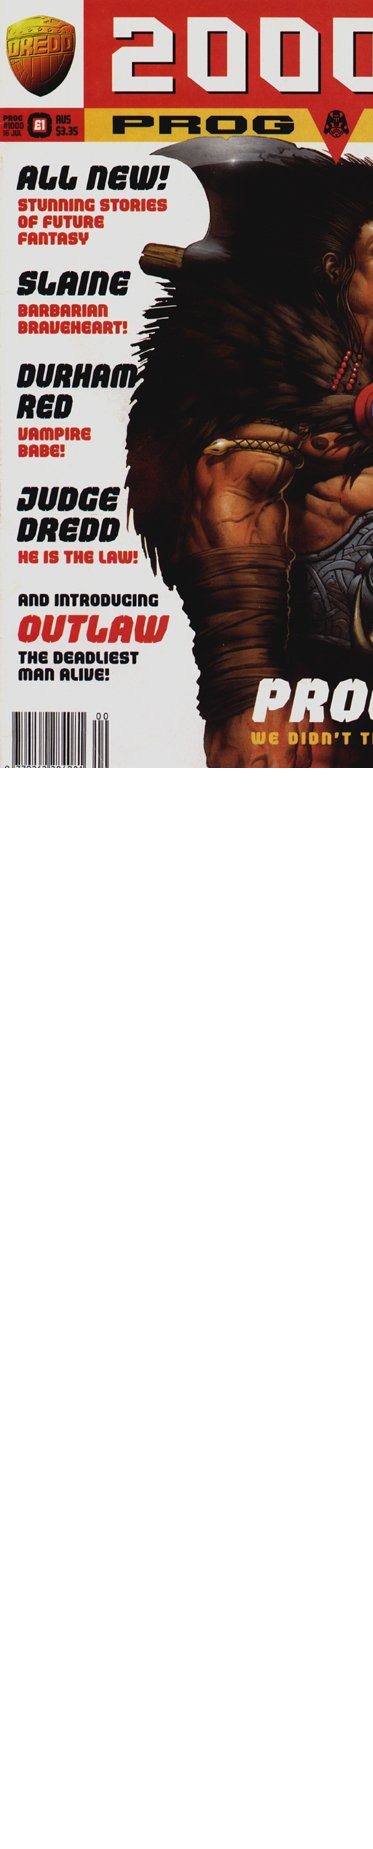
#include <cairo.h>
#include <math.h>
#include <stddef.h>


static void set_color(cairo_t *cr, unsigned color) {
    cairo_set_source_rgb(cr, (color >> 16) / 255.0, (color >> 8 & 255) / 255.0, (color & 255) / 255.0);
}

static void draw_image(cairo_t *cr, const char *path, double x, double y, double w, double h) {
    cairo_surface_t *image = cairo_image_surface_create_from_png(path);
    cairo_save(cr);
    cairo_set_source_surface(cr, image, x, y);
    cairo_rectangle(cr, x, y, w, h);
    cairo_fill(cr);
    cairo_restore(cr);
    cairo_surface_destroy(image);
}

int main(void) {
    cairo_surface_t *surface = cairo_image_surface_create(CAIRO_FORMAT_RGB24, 373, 1849);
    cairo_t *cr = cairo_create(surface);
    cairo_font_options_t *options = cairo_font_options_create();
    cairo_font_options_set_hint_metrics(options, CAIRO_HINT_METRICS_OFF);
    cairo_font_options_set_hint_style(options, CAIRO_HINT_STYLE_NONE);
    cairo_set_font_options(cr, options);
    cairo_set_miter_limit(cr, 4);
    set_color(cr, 0xFFFFFF);
    cairo_paint(cr);
    draw_image(cr, "assets/img1.png", 0, 0, 373, 768);
    cairo_surface_write_to_png(surface, "output.png");
    cairo_font_options_destroy(options);
    cairo_destroy(cr);
    cairo_surface_destroy(surface);
    return 0;
}
